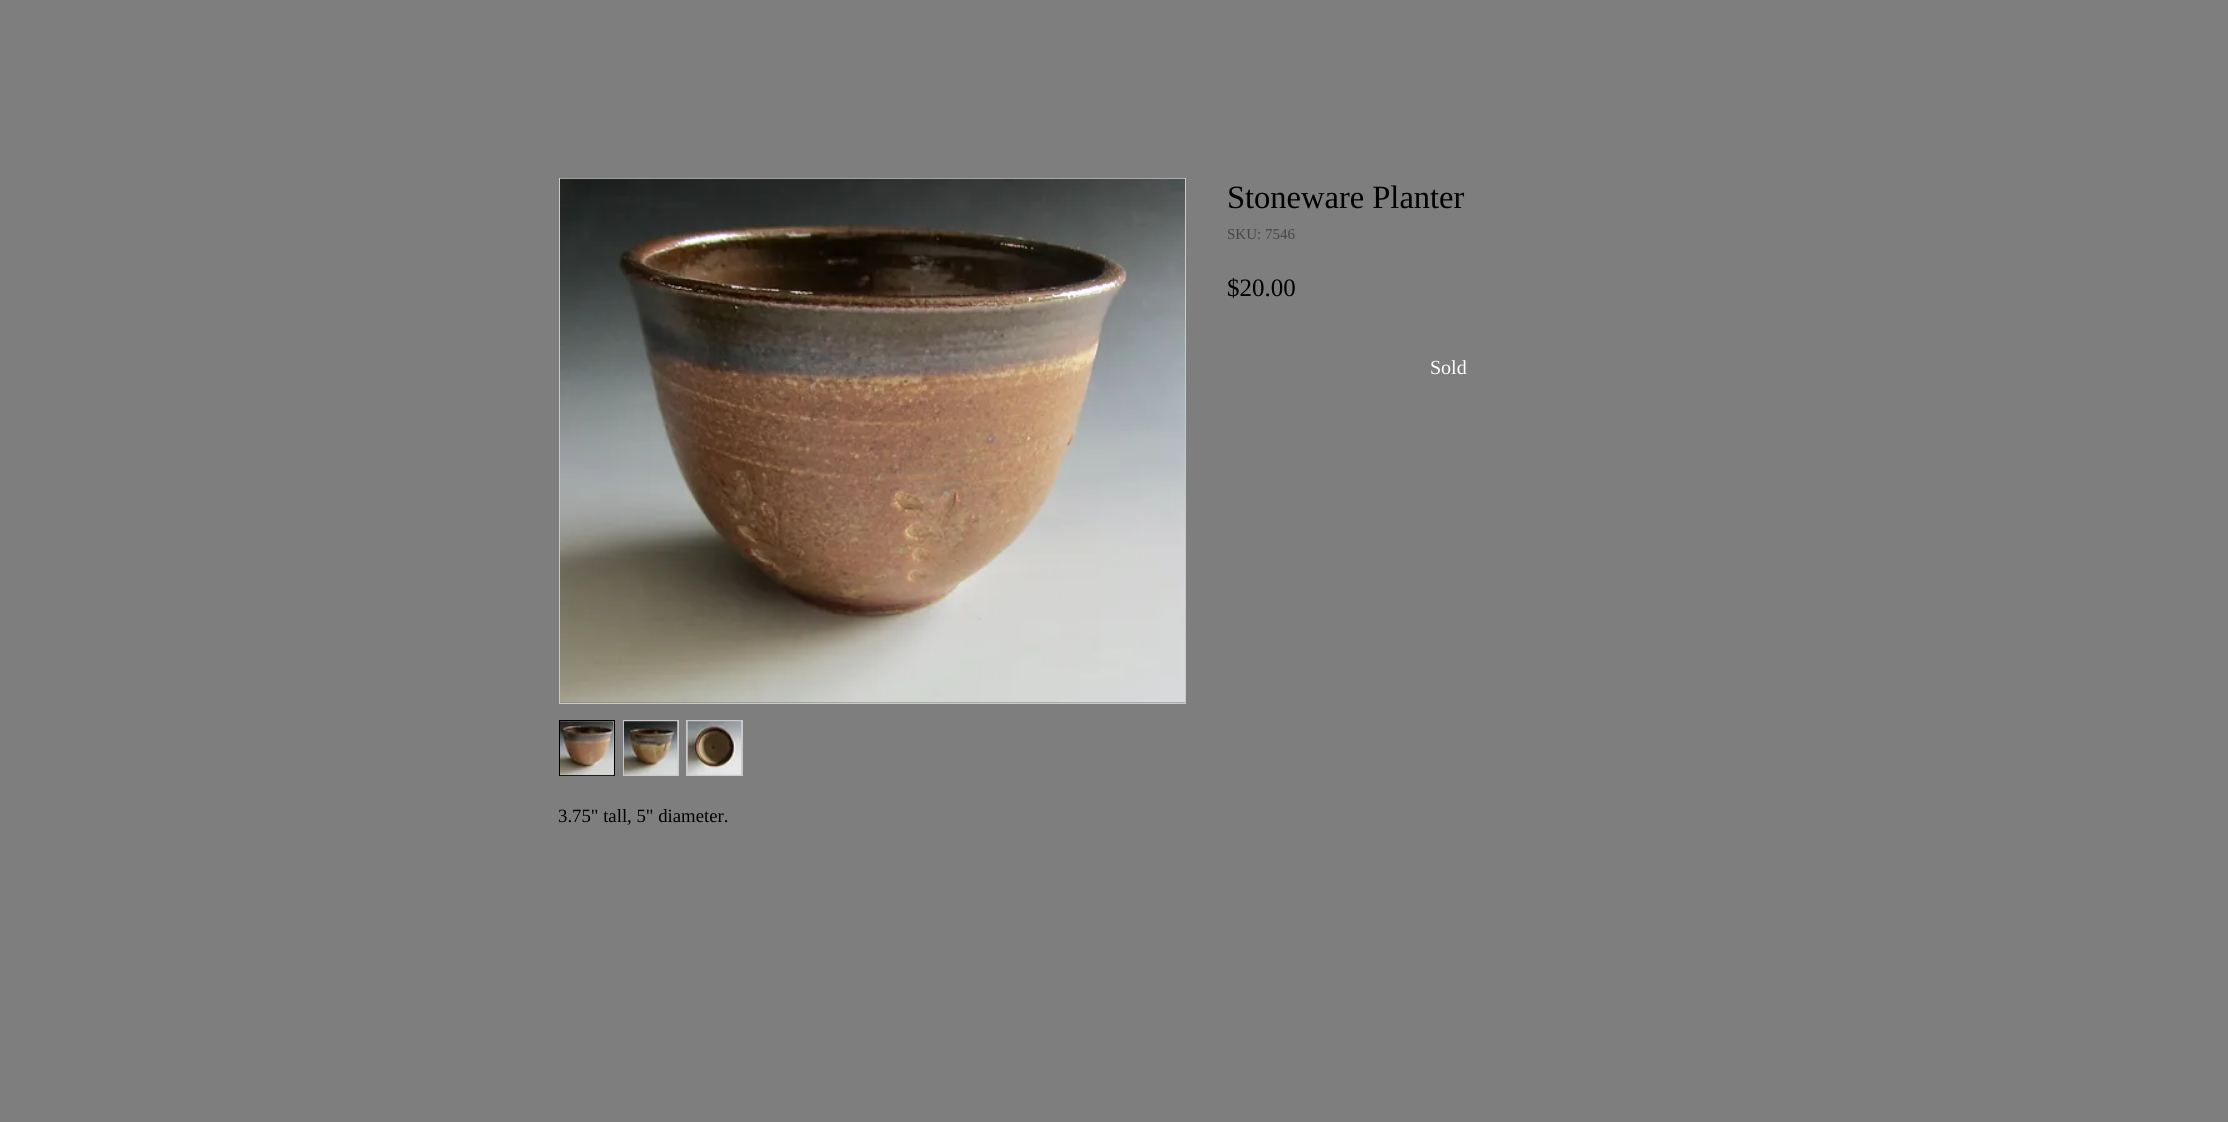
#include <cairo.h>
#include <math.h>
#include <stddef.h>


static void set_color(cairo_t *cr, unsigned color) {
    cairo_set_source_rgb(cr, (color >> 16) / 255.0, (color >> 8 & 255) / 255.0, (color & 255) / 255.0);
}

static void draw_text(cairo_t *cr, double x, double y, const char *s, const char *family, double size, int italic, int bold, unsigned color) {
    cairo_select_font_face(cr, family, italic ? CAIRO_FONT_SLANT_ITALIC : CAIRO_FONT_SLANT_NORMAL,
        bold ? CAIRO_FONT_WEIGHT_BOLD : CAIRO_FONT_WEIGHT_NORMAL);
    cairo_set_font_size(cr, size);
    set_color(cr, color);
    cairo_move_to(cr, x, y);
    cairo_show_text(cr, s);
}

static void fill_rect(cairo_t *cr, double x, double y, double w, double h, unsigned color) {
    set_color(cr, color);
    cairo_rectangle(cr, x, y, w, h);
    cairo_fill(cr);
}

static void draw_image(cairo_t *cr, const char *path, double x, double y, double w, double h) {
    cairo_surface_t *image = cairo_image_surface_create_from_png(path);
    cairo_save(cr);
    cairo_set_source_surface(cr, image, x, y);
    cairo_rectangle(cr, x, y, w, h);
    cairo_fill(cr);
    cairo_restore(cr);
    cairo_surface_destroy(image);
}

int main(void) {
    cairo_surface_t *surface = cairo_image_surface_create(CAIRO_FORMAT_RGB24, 2228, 1122);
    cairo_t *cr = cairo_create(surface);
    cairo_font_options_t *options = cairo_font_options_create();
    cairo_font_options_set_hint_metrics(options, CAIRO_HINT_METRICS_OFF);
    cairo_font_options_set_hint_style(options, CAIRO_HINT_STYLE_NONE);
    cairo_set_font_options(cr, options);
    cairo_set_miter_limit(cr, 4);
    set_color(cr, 0x7F7E7E);
    cairo_paint(cr);
    draw_text(cr, 1227, 208, "Stoneware Planter", "Liberation Serif", 32.5, 0, 0, 0x000000);
    draw_text(cr, 1227, 239, "SKU: 7546", "Liberation Serif", 15, 0, 0, 0x464646);
    draw_text(cr, 1227, 296, "$20.00", "Liberation Serif", 25, 0, 0, 0x000000);
    draw_text(cr, 1430, 374, "Sold", "Liberation Serif", 20, 0, 0, 0xFFFFFF);
    cairo_rectangle(cr, 559.5, 178.5, 626, 525);
    set_color(cr, 0xCACACA);
    cairo_set_line_width(cr, 1);
    cairo_stroke(cr);
    draw_image(cr, "assets/img1.png", 560, 178, 625, 525);
    cairo_rectangle(cr, 559.5, 720.5, 55, 55);
    cairo_fill_preserve(cr);
    set_color(cr, 0x000000);
    cairo_stroke(cr);
    draw_image(cr, "assets/img2.png", 560, 721, 54, 55);
    fill_rect(cr, 623, 720, 56, 56, 0xCACACA);
    draw_image(cr, "assets/img3.png", 623, 721, 55, 55);
    fill_rect(cr, 686, 720, 57, 56, 0xCACACA);
    draw_image(cr, "assets/img4.png", 687, 721, 54, 55);
    draw_text(cr, 558, 822, "3.75\" tall, 5\" diameter.", "Liberation Serif", 18.75, 0, 0, 0x000000);
    cairo_surface_write_to_png(surface, "output.png");
    cairo_font_options_destroy(options);
    cairo_destroy(cr);
    cairo_surface_destroy(surface);
    return 0;
}
